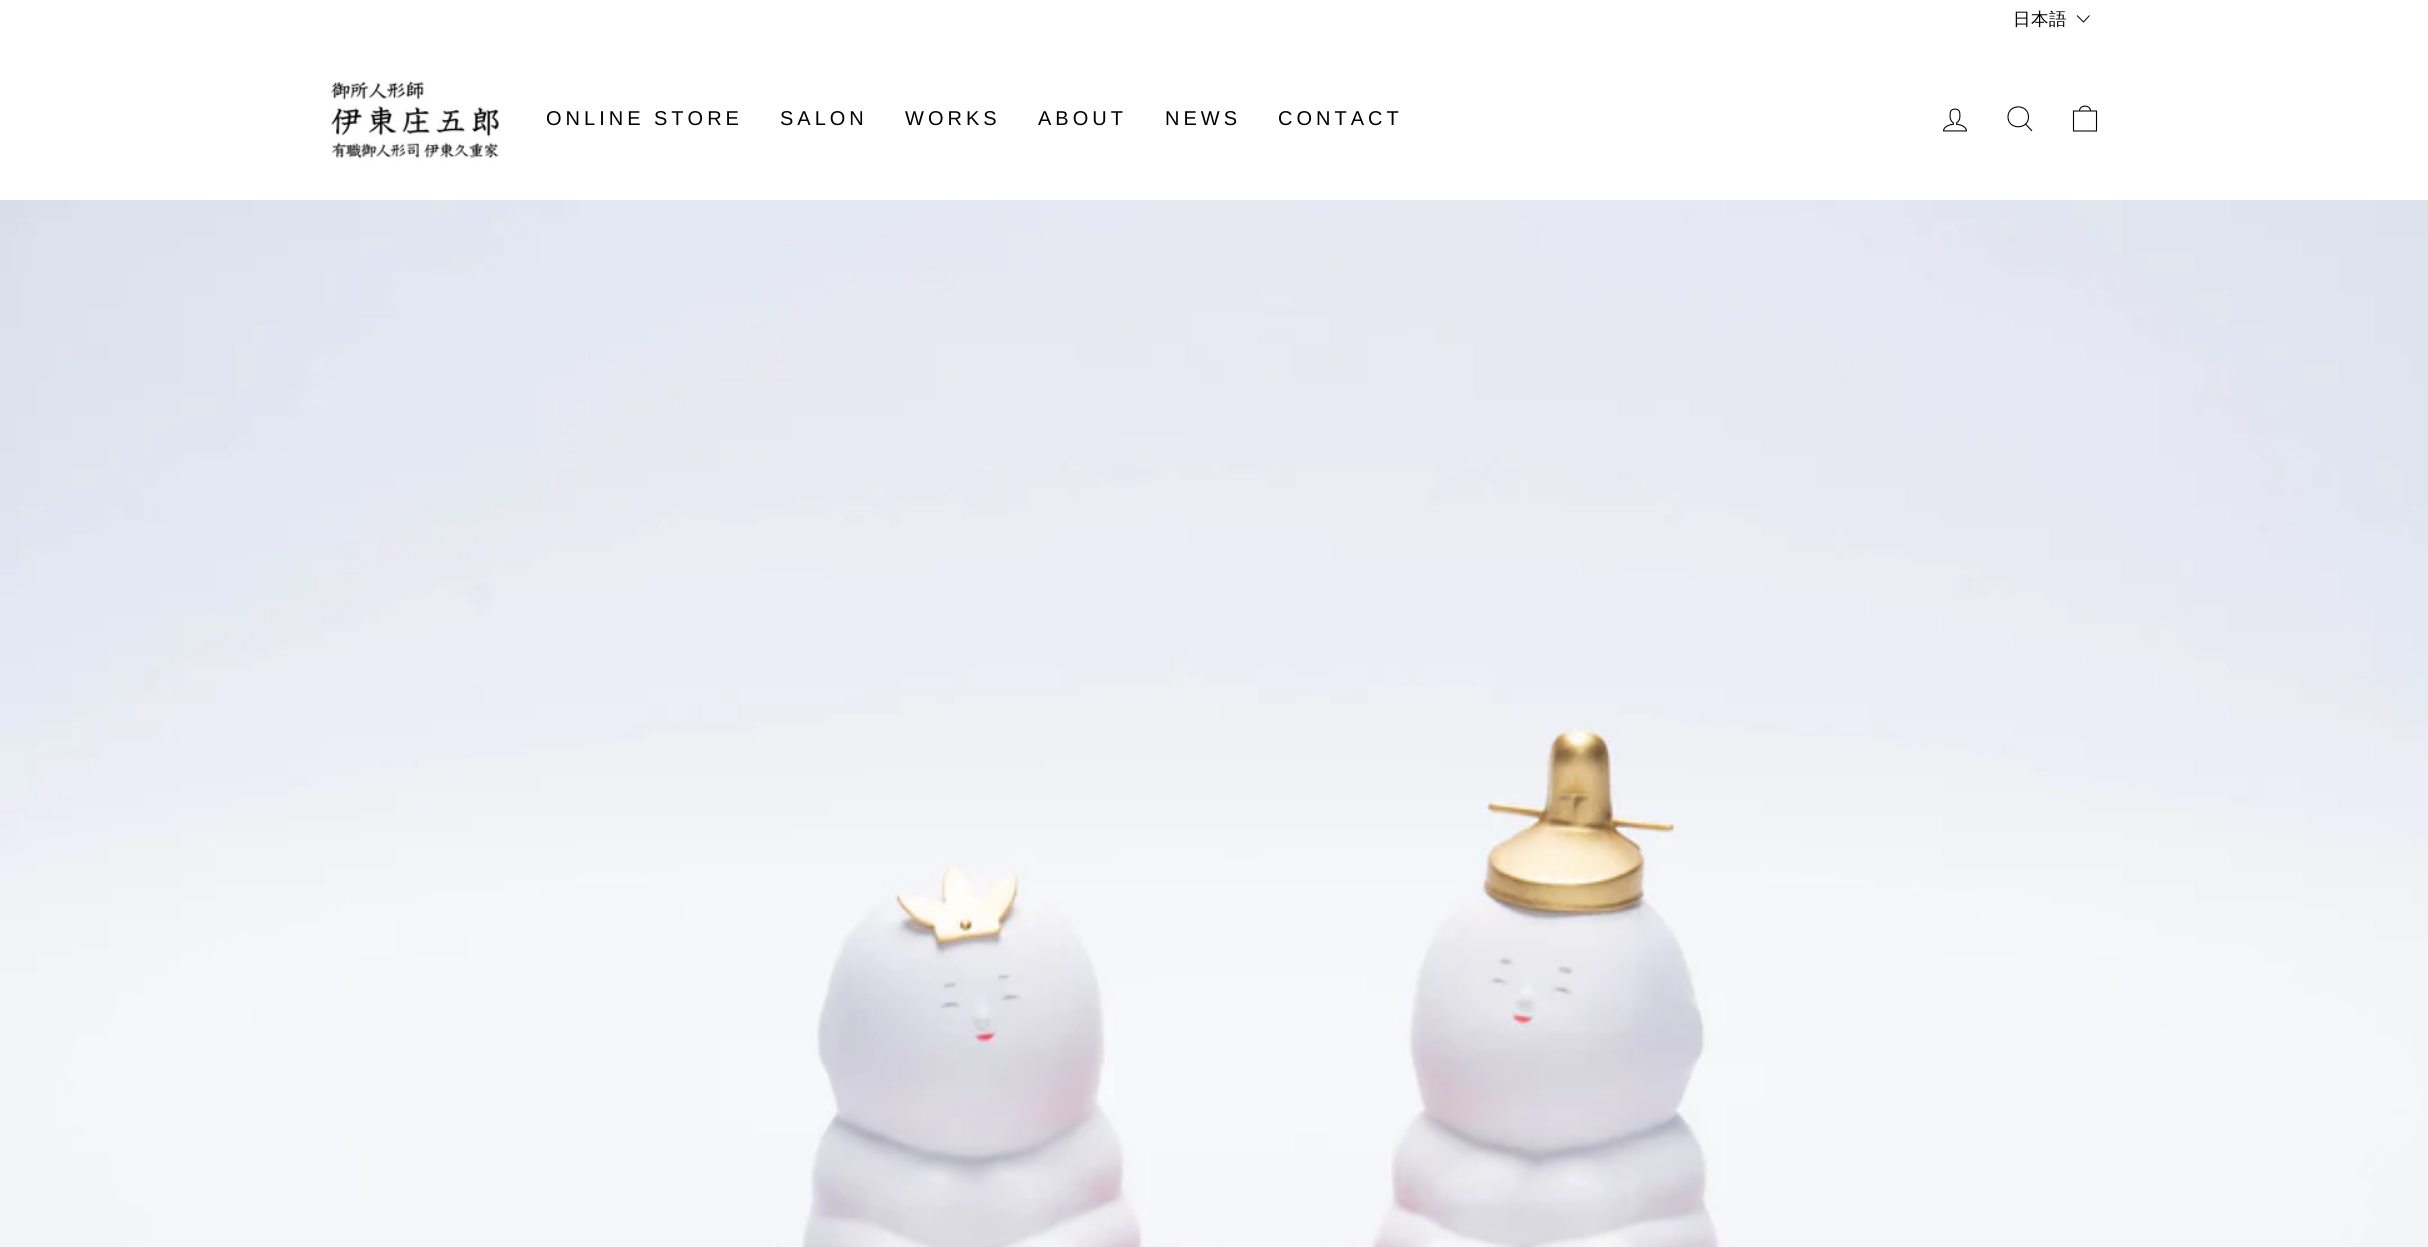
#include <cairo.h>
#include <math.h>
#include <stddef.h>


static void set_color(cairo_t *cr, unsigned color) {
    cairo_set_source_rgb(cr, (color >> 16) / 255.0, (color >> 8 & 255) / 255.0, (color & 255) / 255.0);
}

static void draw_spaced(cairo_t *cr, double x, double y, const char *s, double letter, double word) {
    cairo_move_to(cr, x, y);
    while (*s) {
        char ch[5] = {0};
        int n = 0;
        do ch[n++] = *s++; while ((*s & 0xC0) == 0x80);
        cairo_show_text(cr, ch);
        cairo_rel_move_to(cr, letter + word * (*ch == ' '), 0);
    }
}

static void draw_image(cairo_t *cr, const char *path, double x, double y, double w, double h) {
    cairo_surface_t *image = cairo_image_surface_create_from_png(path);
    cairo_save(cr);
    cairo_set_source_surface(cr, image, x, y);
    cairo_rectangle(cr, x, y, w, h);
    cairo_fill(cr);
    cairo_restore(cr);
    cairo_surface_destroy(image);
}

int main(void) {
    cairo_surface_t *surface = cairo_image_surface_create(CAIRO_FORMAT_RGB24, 2428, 1247);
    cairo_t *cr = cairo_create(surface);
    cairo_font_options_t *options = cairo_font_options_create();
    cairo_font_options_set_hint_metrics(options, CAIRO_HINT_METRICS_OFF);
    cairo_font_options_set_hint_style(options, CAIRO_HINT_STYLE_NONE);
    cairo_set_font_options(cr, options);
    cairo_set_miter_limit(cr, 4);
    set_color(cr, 0xFFFFFF);
    cairo_paint(cr);
    cairo_select_font_face(cr, "WenQuanYi Zen Hei Medium", CAIRO_FONT_SLANT_NORMAL, CAIRO_FONT_WEIGHT_NORMAL);
    cairo_set_font_size(cr, 17.5);
    set_color(cr, 0x000000);
    draw_spaced(cr, 2013, 25, "日本語", 0.5, 0);
    cairo_new_path(cr);
    cairo_move_to(cr, 2077, 15.5);
    cairo_line_to(cr, 2083.5, 22);
    cairo_line_to(cr, 2089.5, 15.5);
    cairo_set_line_width(cr, 1);
    cairo_stroke(cr);
    draw_image(cr, "assets/img1.png", 328, 81, 172, 80);
    cairo_select_font_face(cr, "Liberation Sans", CAIRO_FONT_SLANT_NORMAL, CAIRO_FONT_WEIGHT_NORMAL);
    cairo_set_font_size(cr, 20);
    draw_spaced(cr, 546, 125, "ONLINE STORE", 4, 0);
    draw_spaced(cr, 780, 125, "SALON", 4, 0);
    draw_spaced(cr, 905, 125, "WORKS", 4, 0);
    draw_spaced(cr, 1038, 125, "ABOUT", 4, 0);
    draw_spaced(cr, 1165, 125, "NEWS", 4, 0);
    draw_spaced(cr, 1278, 125, "CONTACT", 4, 0);
    draw_image(cr, "assets/img2.png", 1943, 108, 24, 24);
    cairo_new_path(cr);
    cairo_move_to(cr, 2028.5, 117);
    cairo_curve_to(cr, 2028.5, 130, 2008, 130, 2008, 117);
    cairo_curve_to(cr, 2008, 103.5, 2028.5, 103.5, 2028.5, 117);
    cairo_close_path(cr);
    cairo_move_to(cr, 2032, 131);
    cairo_line_to(cr, 2025.5, 124);
    cairo_set_line_width(cr, 1.1);
    cairo_stroke(cr);
    cairo_new_path(cr);
    cairo_move_to(cr, 2073.5, 111);
    cairo_line_to(cr, 2096.5, 111);
    cairo_line_to(cr, 2096.5, 131);
    cairo_line_to(cr, 2073.5, 131);
    cairo_close_path(cr);
    cairo_move_to(cr, 2079.5, 111);
    cairo_curve_to(cr, 2079.5, 104.5, 2090.5, 104.5, 2090.5, 111);
    cairo_stroke(cr);
    draw_image(cr, "assets/img3.png", 0, 200, 2428, 1047);
    cairo_surface_write_to_png(surface, "output.png");
    cairo_font_options_destroy(options);
    cairo_destroy(cr);
    cairo_surface_destroy(surface);
    return 0;
}
